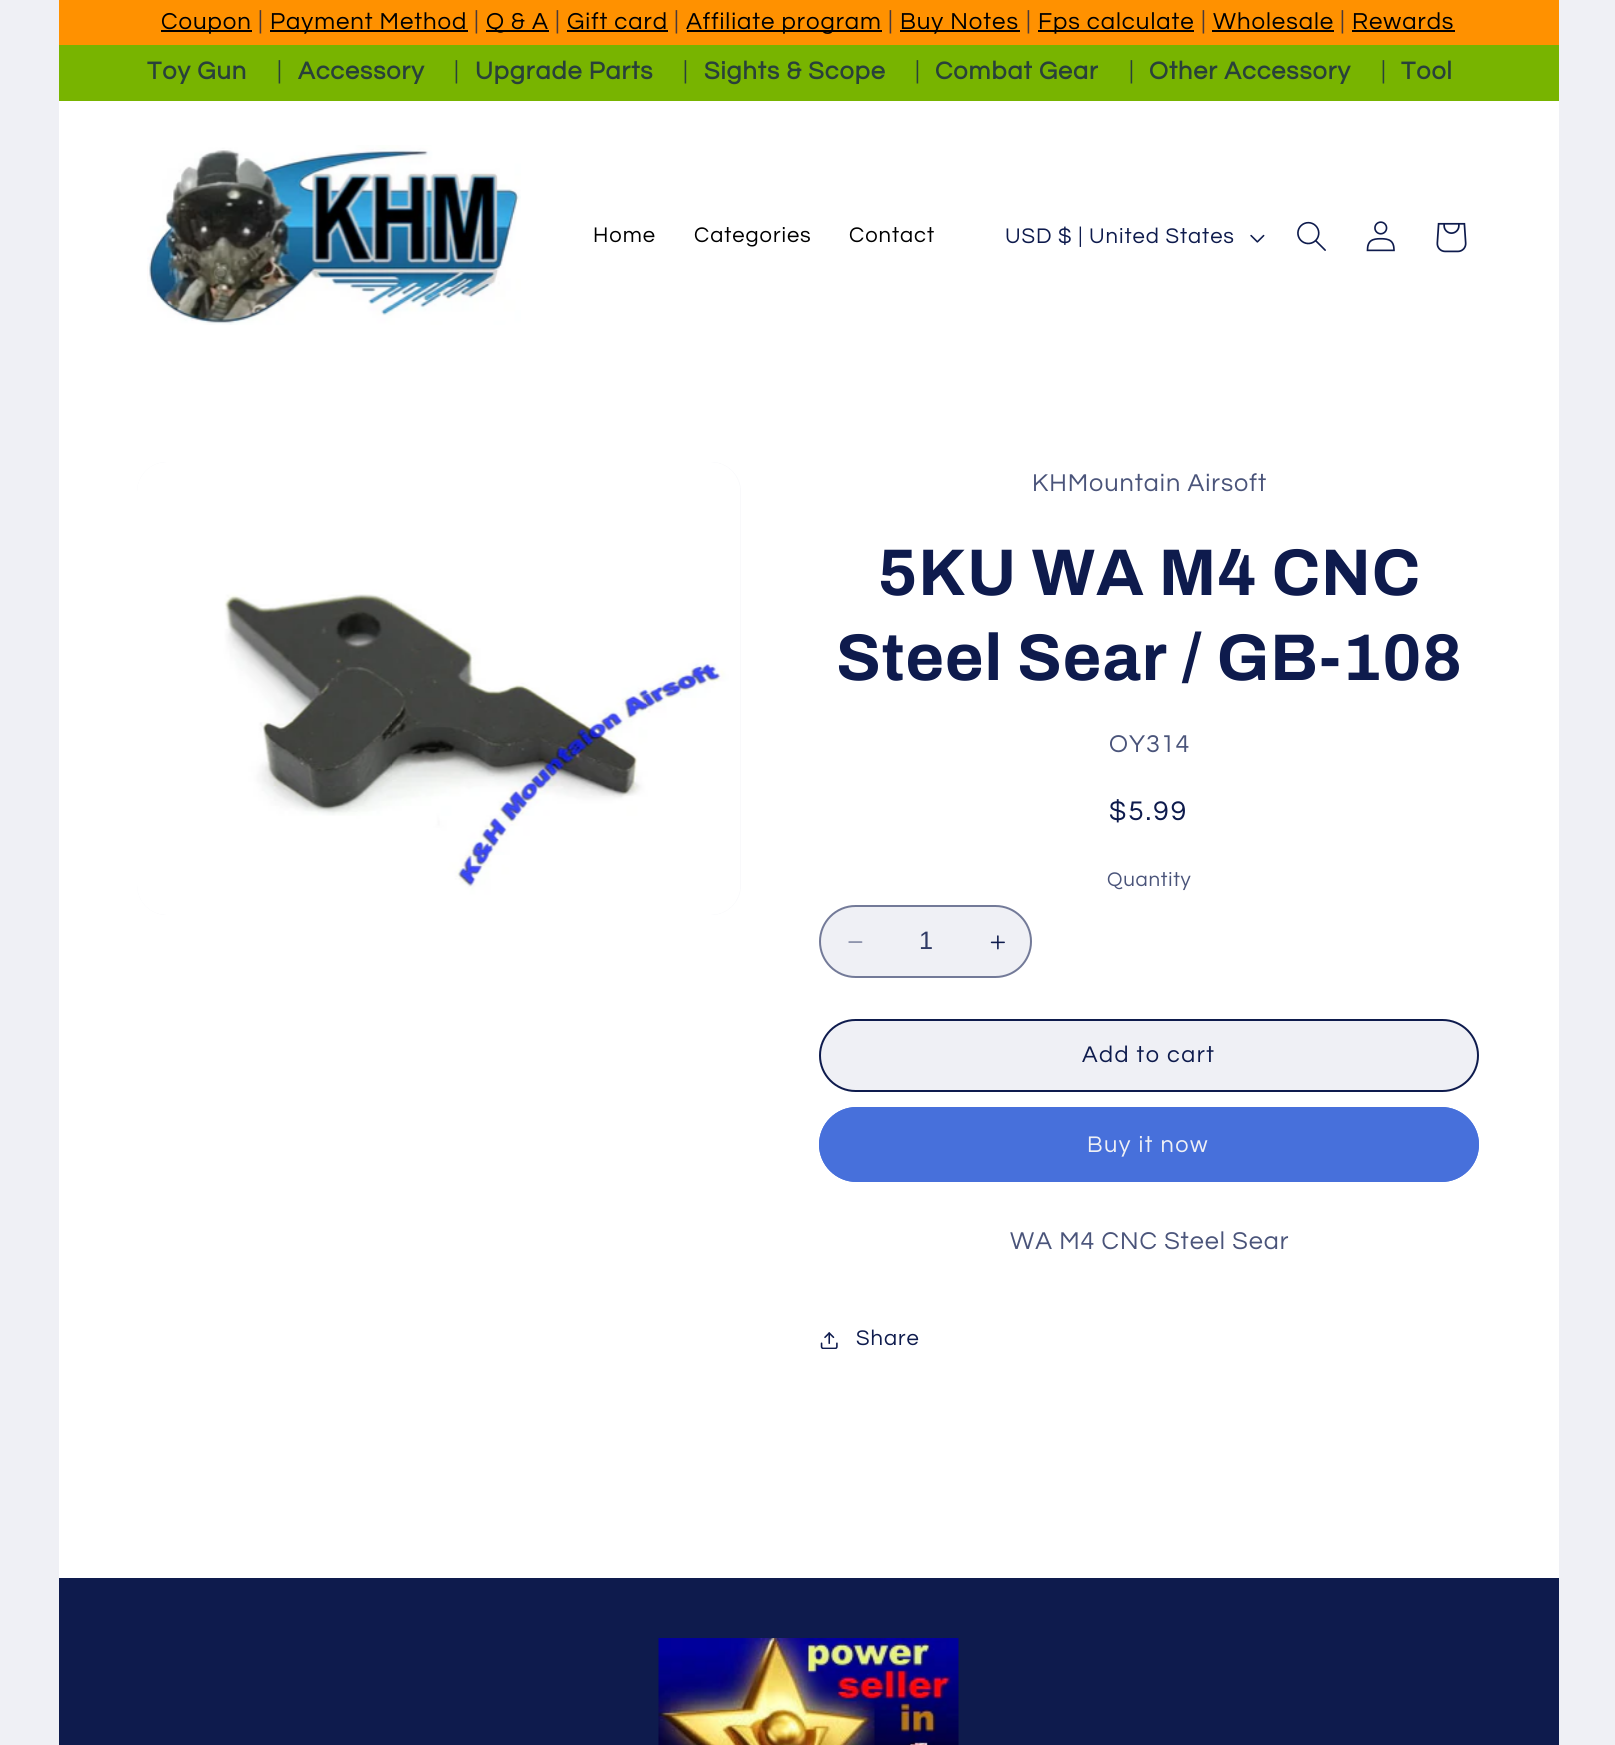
#include <cairo.h>
#include <math.h>
#include <stddef.h>


static void set_color(cairo_t *cr, unsigned color) {
    cairo_set_source_rgb(cr, (color >> 16) / 255.0, (color >> 8 & 255) / 255.0, (color & 255) / 255.0);
}

static void draw_text(cairo_t *cr, double x, double y, const char *s, const char *family, double size, int italic, int bold, unsigned color) {
    cairo_select_font_face(cr, family, italic ? CAIRO_FONT_SLANT_ITALIC : CAIRO_FONT_SLANT_NORMAL,
        bold ? CAIRO_FONT_WEIGHT_BOLD : CAIRO_FONT_WEIGHT_NORMAL);
    cairo_set_font_size(cr, size);
    set_color(cr, color);
    cairo_move_to(cr, x, y);
    cairo_show_text(cr, s);
}

static void draw_spaced(cairo_t *cr, double x, double y, const char *s, double letter, double word) {
    cairo_move_to(cr, x, y);
    while (*s) {
        char ch[5] = {0};
        int n = 0;
        do ch[n++] = *s++; while ((*s & 0xC0) == 0x80);
        cairo_show_text(cr, ch);
        cairo_rel_move_to(cr, letter + word * (*ch == ' '), 0);
    }
}

static void fill_rect(cairo_t *cr, double x, double y, double w, double h, unsigned color) {
    set_color(cr, color);
    cairo_rectangle(cr, x, y, w, h);
    cairo_fill(cr);
}

static void rounded_rect(cairo_t *cr, double x, double y, double w, double h, double r) {
    cairo_new_sub_path(cr);
    cairo_arc(cr, x + w - r, y + h - r, r, 0, M_PI / 2);
    cairo_arc(cr, x + r, y + h - r, r, M_PI / 2, M_PI);
    cairo_arc(cr, x + r, y + r, r, M_PI, 1.5 * M_PI);
    cairo_arc(cr, x + w - r, y + r, r, 1.5 * M_PI, 2 * M_PI);
    cairo_close_path(cr);
}

static void draw_image(cairo_t *cr, const char *path, double x, double y, double w, double h) {
    cairo_surface_t *image = cairo_image_surface_create_from_png(path);
    cairo_save(cr);
    cairo_set_source_surface(cr, image, x, y);
    cairo_rectangle(cr, x, y, w, h);
    cairo_fill(cr);
    cairo_restore(cr);
    cairo_surface_destroy(image);
}

int main(void) {
    cairo_surface_t *surface = cairo_image_surface_create(CAIRO_FORMAT_RGB24, 1615, 1745);
    cairo_t *cr = cairo_create(surface);
    cairo_font_options_t *options = cairo_font_options_create();
    cairo_font_options_set_hint_metrics(options, CAIRO_HINT_METRICS_OFF);
    cairo_font_options_set_hint_style(options, CAIRO_HINT_STYLE_NONE);
    cairo_set_font_options(cr, options);
    cairo_set_miter_limit(cr, 4);
    set_color(cr, 0xEFF0F5);
    cairo_paint(cr);
    fill_rect(cr, 59, 0, 1500, 45, 0xFF9100);
    fill_rect(cr, 161, 30, 91, 2, 0x000000);
    cairo_select_font_face(cr, "Questrial", CAIRO_FONT_SLANT_NORMAL, CAIRO_FONT_WEIGHT_NORMAL);
    cairo_set_font_size(cr, 24);
    draw_spaced(cr, 161, 29, "Coupon", 0.95, 0);
    cairo_set_font_size(cr, 25.25);
    set_color(cr, 0x4A393A);
    draw_spaced(cr, 258, 29, "|", 0.95, 0);
    fill_rect(cr, 270, 30, 198, 2, 0x000000);
    cairo_set_font_size(cr, 24);
    draw_spaced(cr, 270, 29, "Payment Method", 0.95, 0);
    cairo_set_font_size(cr, 25.25);
    set_color(cr, 0x4A393A);
    draw_spaced(cr, 474, 29, "|", 0.95, 0);
    fill_rect(cr, 486, 30, 63, 2, 0x000000);
    cairo_set_font_size(cr, 24);
    draw_spaced(cr, 486, 29, "Q & A", 0.95, 0);
    cairo_set_font_size(cr, 25.25);
    set_color(cr, 0x4A393A);
    draw_spaced(cr, 555, 29, "|", 0.95, 0);
    cairo_set_font_size(cr, 24);
    set_color(cr, 0x000000);
    draw_spaced(cr, 567, 29, "Gift card", 0.95, 0);
    fill_rect(cr, 567, 30, 101, 2, 0x000000);
    cairo_set_font_size(cr, 25.25);
    set_color(cr, 0x4A393A);
    draw_spaced(cr, 674, 29, "|", 0.95, 0);
    fill_rect(cr, 687, 30, 195, 2, 0x000000);
    cairo_set_font_size(cr, 24);
    draw_spaced(cr, 686, 29, "Affiliate program", 0.95, 0);
    cairo_set_font_size(cr, 25.25);
    set_color(cr, 0x4A393A);
    draw_spaced(cr, 888, 29, "|", 0.95, 0);
    fill_rect(cr, 900, 30, 120, 2, 0x000000);
    cairo_set_font_size(cr, 24);
    draw_spaced(cr, 900, 29, "Buy Notes", 0.95, 0);
    cairo_set_font_size(cr, 25.25);
    set_color(cr, 0x4A393A);
    draw_spaced(cr, 1026, 29, "|", 0.95, 0);
    fill_rect(cr, 1038, 30, 156, 2, 0x000000);
    cairo_set_font_size(cr, 24);
    draw_spaced(cr, 1038, 29, "Fps calculate", 0.95, 0);
    cairo_set_font_size(cr, 25.25);
    set_color(cr, 0x4A393A);
    draw_spaced(cr, 1201, 29, "|", 0.95, 0);
    cairo_set_font_size(cr, 24);
    set_color(cr, 0x000000);
    draw_spaced(cr, 1213, 29, "Wholesale", 0.95, 0);
    fill_rect(cr, 1212, 30, 122, 2, 0x000000);
    cairo_set_font_size(cr, 25.25);
    set_color(cr, 0x4A393A);
    draw_spaced(cr, 1340, 29, "|", 0.95, 0);
    cairo_set_font_size(cr, 24);
    set_color(cr, 0x000000);
    draw_spaced(cr, 1352, 29, "Rewards", 0.95, 0);
    fill_rect(cr, 1352, 30, 103, 2, 0x000000);
    fill_rect(cr, 59, 45, 1500, 56, 0x78B400);
    cairo_select_font_face(cr, "Questrial", CAIRO_FONT_SLANT_NORMAL, CAIRO_FONT_WEIGHT_BOLD);
    cairo_set_font_size(cr, 25.25);
    set_color(cr, 0x29413A);
    draw_spaced(cr, 147, 79, "Toy Gun", 0.95, 0);
    cairo_select_font_face(cr, "Questrial", CAIRO_FONT_SLANT_NORMAL, CAIRO_FONT_WEIGHT_NORMAL);
    draw_spaced(cr, 277, 79, "|", 0.95, 0);
    cairo_select_font_face(cr, "Questrial", CAIRO_FONT_SLANT_NORMAL, CAIRO_FONT_WEIGHT_BOLD);
    draw_spaced(cr, 298, 79, "Accessory", 0.95, 0);
    cairo_select_font_face(cr, "Questrial", CAIRO_FONT_SLANT_NORMAL, CAIRO_FONT_WEIGHT_NORMAL);
    draw_spaced(cr, 454, 79, "|", 0.95, 0);
    cairo_select_font_face(cr, "Questrial", CAIRO_FONT_SLANT_NORMAL, CAIRO_FONT_WEIGHT_BOLD);
    draw_spaced(cr, 475, 79, "Upgrade Parts", 0.95, 0);
    cairo_select_font_face(cr, "Questrial", CAIRO_FONT_SLANT_NORMAL, CAIRO_FONT_WEIGHT_NORMAL);
    draw_spaced(cr, 683, 79, "|", 0.95, 0);
    cairo_select_font_face(cr, "Questrial", CAIRO_FONT_SLANT_NORMAL, CAIRO_FONT_WEIGHT_BOLD);
    draw_spaced(cr, 704, 79, "Sights & Scope", 0.95, 0);
    cairo_select_font_face(cr, "Questrial", CAIRO_FONT_SLANT_NORMAL, CAIRO_FONT_WEIGHT_NORMAL);
    draw_spaced(cr, 915, 79, "|", 0.95, 0);
    cairo_select_font_face(cr, "Questrial", CAIRO_FONT_SLANT_NORMAL, CAIRO_FONT_WEIGHT_BOLD);
    draw_spaced(cr, 935, 79, "Combat Gear", 0.95, 0);
    cairo_select_font_face(cr, "Questrial", CAIRO_FONT_SLANT_NORMAL, CAIRO_FONT_WEIGHT_NORMAL);
    draw_spaced(cr, 1129, 79, "|", 0.95, 0);
    cairo_select_font_face(cr, "Questrial", CAIRO_FONT_SLANT_NORMAL, CAIRO_FONT_WEIGHT_BOLD);
    draw_spaced(cr, 1149, 79, "Other Accessory", 0.95, 0);
    cairo_select_font_face(cr, "Questrial", CAIRO_FONT_SLANT_NORMAL, CAIRO_FONT_WEIGHT_NORMAL);
    draw_spaced(cr, 1381, 79, "|", 0.95, 0);
    cairo_select_font_face(cr, "Questrial", CAIRO_FONT_SLANT_NORMAL, CAIRO_FONT_WEIGHT_BOLD);
    draw_spaced(cr, 1401, 79, "Tool", 0.95, 0);
    fill_rect(cr, 59, 101, 1500, 1477, 0xFFFFFF);
    draw_image(cr, "assets/img1.png", 147, 145, 374, 180);
    cairo_select_font_face(cr, "Questrial", CAIRO_FONT_SLANT_NORMAL, CAIRO_FONT_WEIGHT_NORMAL);
    cairo_set_font_size(cr, 22);
    set_color(cr, 0x000000);
    draw_spaced(cr, 593, 242, "Home", 0.95, 0);
    draw_spaced(cr, 694, 242, "Categories", 0.95, 0);
    draw_spaced(cr, 849, 242, "Contact", 0.95, 0);
    set_color(cr, 0x0E1B4D);
    draw_spaced(cr, 1005, 243, "USD $ | United States", 0.95, 0);
    draw_image(cr, "assets/img2.png", 1250, 234, 15, 9);
    draw_image(cr, "assets/img3.png", 1297, 221, 29, 30);
    draw_image(cr, "assets/img4.png", 1366, 221, 29, 31);
    draw_image(cr, "assets/img5.png", 1436, 222, 31, 31);
    set_color(cr, 0xEFF0F5);
    rounded_rect(cr, 137, 462, 604, 453, 30);
    cairo_fill(cr);
    draw_image(cr, "assets/img6.png", 137, 462, 604, 453);
    cairo_set_font_size(cr, 25.25);
    set_color(cr, 0x4A547A);
    draw_spaced(cr, 1032, 491, "KHMountain Airsoft", 0.95, 0);
    cairo_select_font_face(cr, "Archivo", CAIRO_FONT_SLANT_NORMAL, CAIRO_FONT_WEIGHT_BOLD);
    cairo_set_font_size(cr, 66);
    set_color(cr, 0x0E1B4D);
    draw_spaced(cr, 878, 595, "5KU WA M4 CNC", 1, 0);
    draw_spaced(cr, 836, 680, "Steel Sear / GB-108", 1, 0);
    cairo_select_font_face(cr, "Questrial", CAIRO_FONT_SLANT_NORMAL, CAIRO_FONT_WEIGHT_NORMAL);
    cairo_set_font_size(cr, 25.25);
    set_color(cr, 0x4A547A);
    draw_spaced(cr, 1109, 752, "OY314", 0.95, 0);
    cairo_set_font_size(cr, 28);
    set_color(cr, 0x0E1B4D);
    draw_spaced(cr, 1109, 820, "$5.99", 2, 0);
    cairo_set_font_size(cr, 20.5);
    set_color(cr, 0x4A547A);
    draw_spaced(cr, 1107, 886, "Quantity", 0.75, 0);
    set_color(cr, 0xEFF0F5);
    rounded_rect(cr, 819, 905, 213, 73, 36.5);
    cairo_fill(cr);
    draw_image(cr, "assets/img7.png", 848, 941, 15, 2);
    draw_image(cr, "assets/img8.png", 990, 935, 15, 15);
    rounded_rect(cr, 820, 906, 211, 71, 35.5);
    cairo_set_source_rgba(cr, 0.055, 0.106, 0.302, 0.55);
    cairo_stroke(cr);
    draw_text(cr, 919, 949, "1", "Liberation Sans", 25.25, 0, 0, 0x303B66);
    set_color(cr, 0xEFF0F5);
    rounded_rect(cr, 819, 1019, 660, 73, 36.5);
    cairo_fill(cr);
    rounded_rect(cr, 820, 1020, 658, 71, 35.5);
    cairo_stroke(cr);
    rounded_rect(cr, 820, 1020, 658, 71, 35.5);
    set_color(cr, 0x0E1B4D);
    cairo_stroke(cr);
    cairo_select_font_face(cr, "Questrial", CAIRO_FONT_SLANT_NORMAL, CAIRO_FONT_WEIGHT_NORMAL);
    cairo_set_font_size(cr, 23.5);
    draw_spaced(cr, 1082, 1062, "Add to cart", 1.5, 0);
    set_color(cr, 0x4770DB);
    rounded_rect(cr, 819, 1107, 660, 75, 37.5);
    cairo_fill(cr);
    rounded_rect(cr, 820, 1108, 658, 73, 36.5);
    cairo_stroke(cr);
    set_color(cr, 0xEFF0F5);
    draw_spaced(cr, 1087, 1152, "Buy it now", 1.5, 0);
    cairo_set_font_size(cr, 25.25);
    set_color(cr, 0x4A547A);
    draw_spaced(cr, 1010, 1249, "WA M4 CNC Steel Sear", 0.95, 0);
    draw_image(cr, "assets/img9.png", 820, 1332, 18, 17);
    cairo_set_font_size(cr, 22);
    set_color(cr, 0x0E1B4D);
    draw_spaced(cr, 856, 1345, "Share", 0.95, 0);
    fill_rect(cr, 59, 1578, 1500, 167, 0x0E1B4D);
    draw_image(cr, "assets/img10.png", 658, 1638, 301, 107);
    cairo_surface_write_to_png(surface, "output.png");
    cairo_font_options_destroy(options);
    cairo_destroy(cr);
    cairo_surface_destroy(surface);
    return 0;
}
